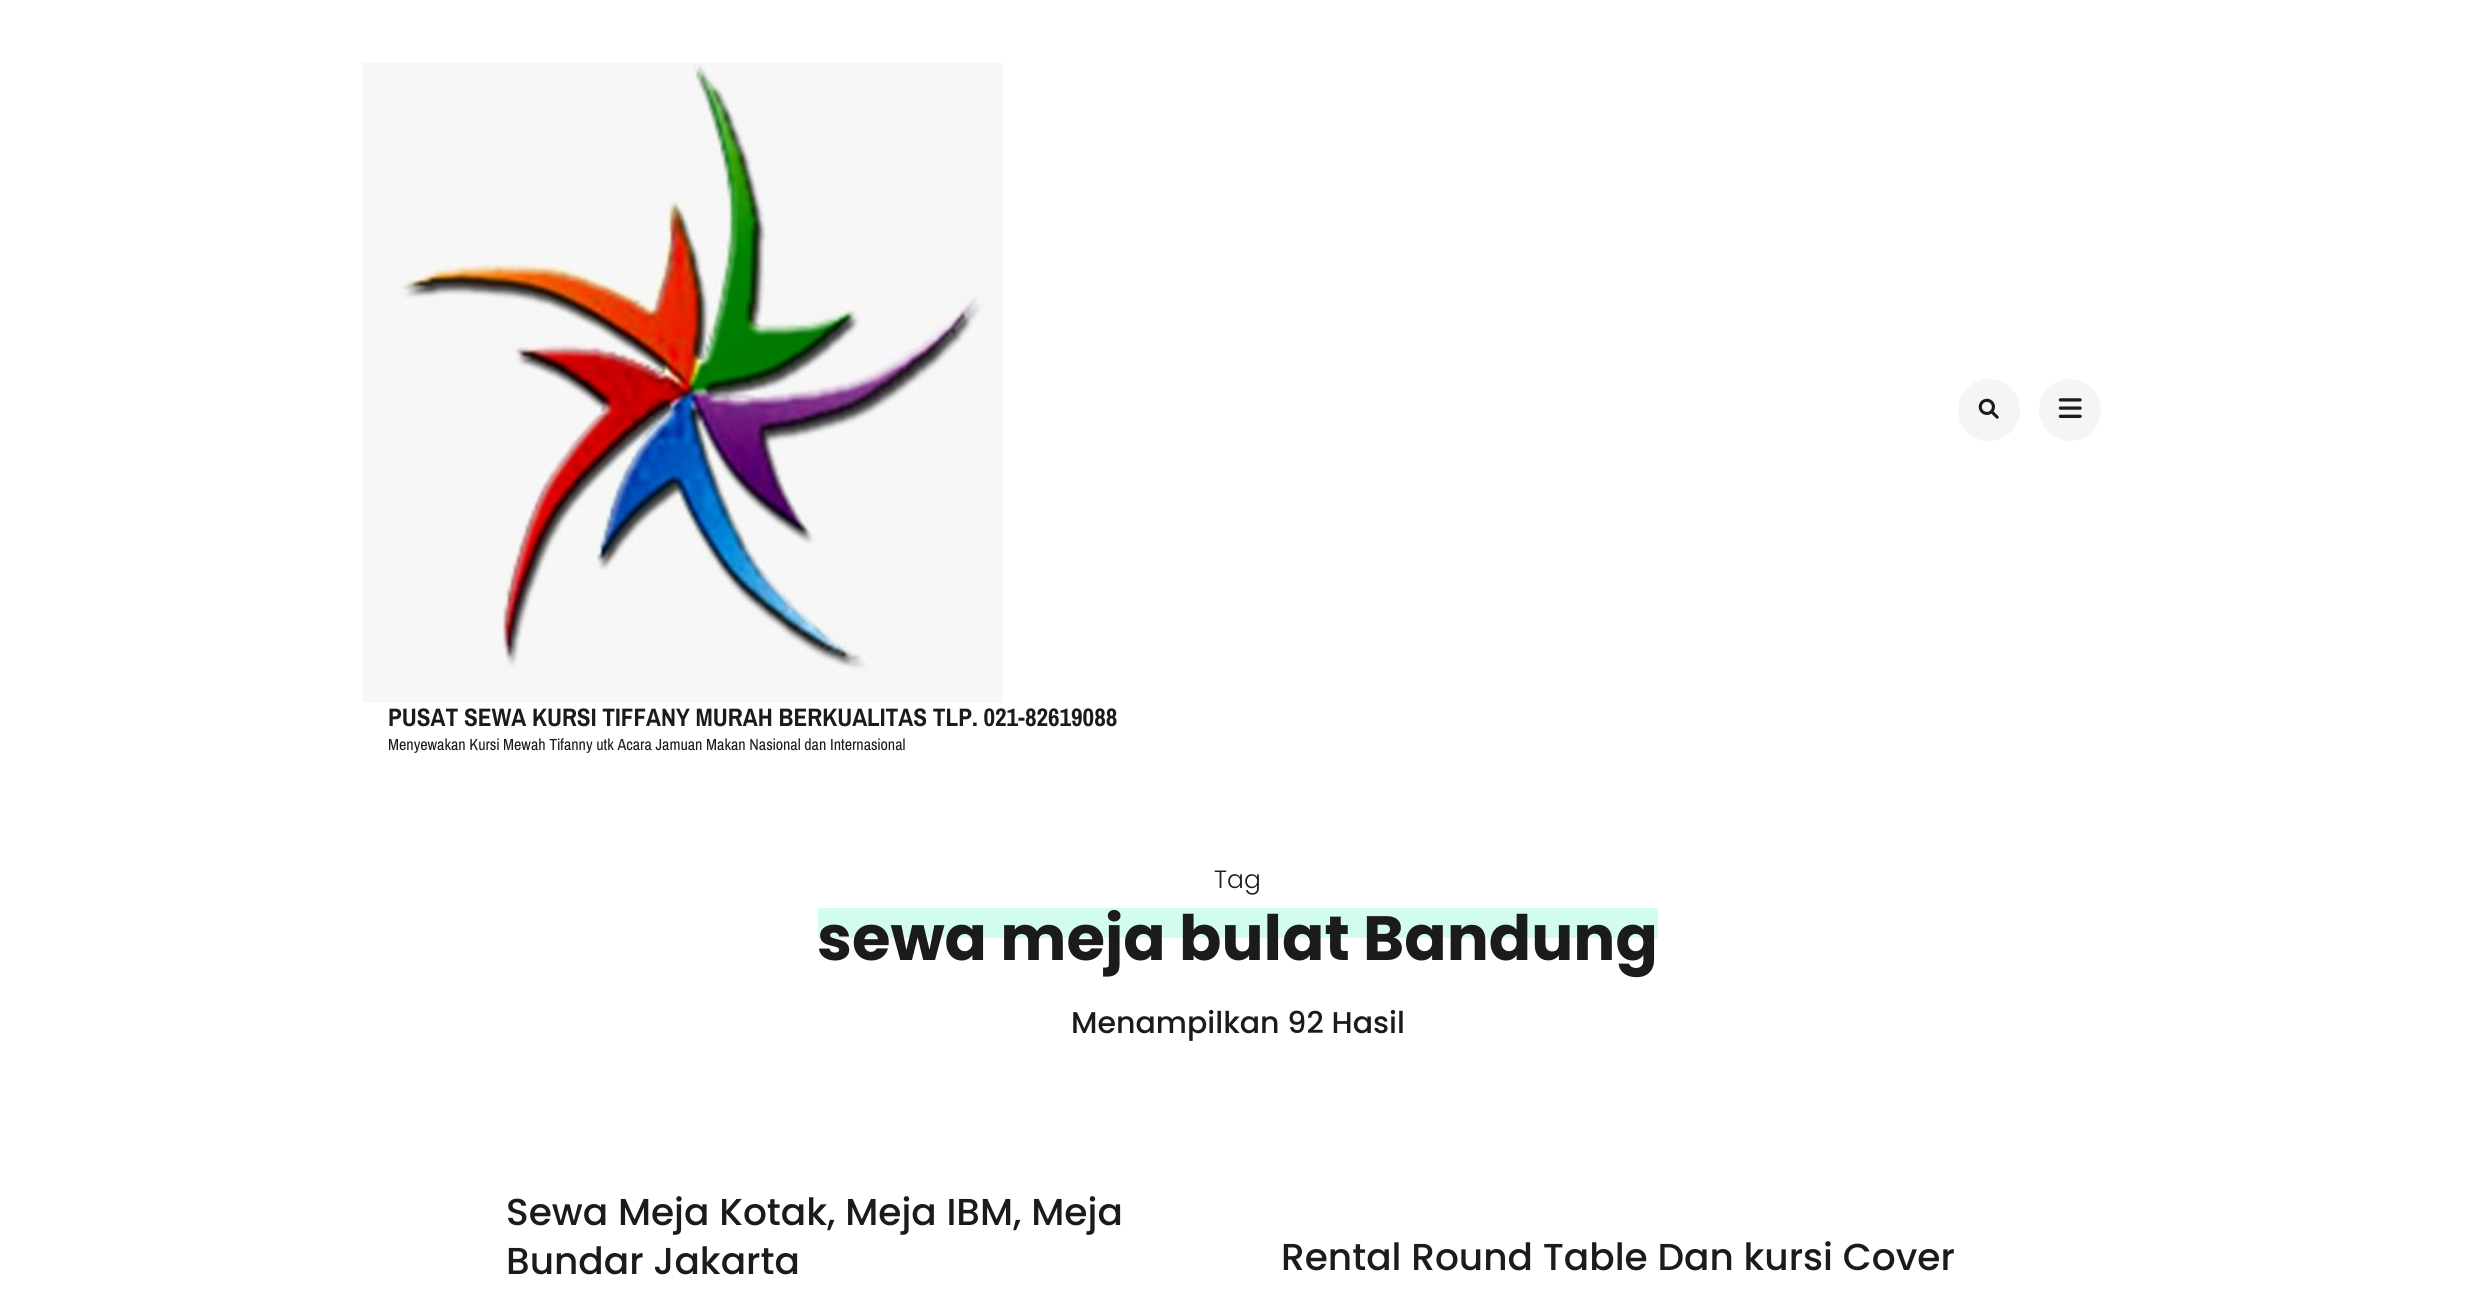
#include <cairo.h>
#include <math.h>
#include <stddef.h>


static void set_color(cairo_t *cr, unsigned color) {
    cairo_set_source_rgb(cr, (color >> 16) / 255.0, (color >> 8 & 255) / 255.0, (color & 255) / 255.0);
}

static void draw_text(cairo_t *cr, double x, double y, const char *s, const char *family, double size, int italic, int bold, unsigned color) {
    cairo_select_font_face(cr, family, italic ? CAIRO_FONT_SLANT_ITALIC : CAIRO_FONT_SLANT_NORMAL,
        bold ? CAIRO_FONT_WEIGHT_BOLD : CAIRO_FONT_WEIGHT_NORMAL);
    cairo_set_font_size(cr, size);
    set_color(cr, color);
    cairo_move_to(cr, x, y);
    cairo_show_text(cr, s);
}

static void fill_rect(cairo_t *cr, double x, double y, double w, double h, unsigned color) {
    set_color(cr, color);
    cairo_rectangle(cr, x, y, w, h);
    cairo_fill(cr);
}

static void draw_image(cairo_t *cr, const char *path, double x, double y, double w, double h) {
    cairo_surface_t *image = cairo_image_surface_create_from_png(path);
    cairo_save(cr);
    cairo_set_source_surface(cr, image, x, y);
    cairo_rectangle(cr, x, y, w, h);
    cairo_fill(cr);
    cairo_restore(cr);
    cairo_surface_destroy(image);
}

int main(void) {
    cairo_surface_t *surface = cairo_image_surface_create(CAIRO_FORMAT_RGB24, 2474, 1296);
    cairo_t *cr = cairo_create(surface);
    cairo_font_options_t *options = cairo_font_options_create();
    cairo_font_options_set_hint_metrics(options, CAIRO_HINT_METRICS_OFF);
    cairo_font_options_set_hint_style(options, CAIRO_HINT_STYLE_NONE);
    cairo_set_font_options(cr, options);
    cairo_set_miter_limit(cr, 4);
    set_color(cr, 0xFFFFFF);
    cairo_paint(cr);
    set_color(cr, 0xF5F5F5);
    cairo_arc(cr, 1989, 410, 31, 0, 2 * M_PI);
    cairo_fill(cr);
    draw_image(cr, "assets/img1.png", 1978, 398, 21, 21);
    cairo_arc(cr, 2070, 410, 31, 0, 2 * M_PI);
    cairo_fill(cr);
    draw_image(cr, "assets/img2.png", 2058, 398, 24, 20);
    draw_image(cr, "assets/img3.png", 362, 62, 641, 641);
    draw_text(cr, 388, 726, "PUSAT SEWA KURSI TIFFANY MURAH BERKUALITAS TLP. 021-82619088", "Pragati Narrow", 27.5, 0, 1, 0x1C1B1B);
    draw_text(cr, 388, 750, "Menyewakan Kursi Mewah Tifanny utk Acara Jamuan Makan Nasional dan Internasional", "Pragati Narrow", 17.5, 0, 0, 0x1C1B1B);
    draw_text(cr, 1214, 888, "Tag", "Poppins Light", 25, 0, 0, 0x1C1B1B);
    fill_rect(cr, 818, 908, 840, 30, 0xD2FCEC);
    draw_text(cr, 817, 960, "sewa meja bulat Bandung", "Poppins", 62.5, 0, 1, 0x1C1B1B);
    draw_text(cr, 1071, 1033, "Menampilkan 92 Hasil", "Poppins Medium", 30, 0, 0, 0x1C1B1B);
    draw_text(cr, 506, 1225, "Sewa Meja Kotak, Meja IBM, Meja", "Poppins Medium", 37.5, 0, 0, 0x1C1B1B);
    draw_text(cr, 506, 1274, "Bundar Jakarta", "Poppins Medium", 37.5, 0, 0, 0x1C1B1B);
    draw_text(cr, 1281, 1270, "Rental Round Table Dan kursi Cover", "Poppins Medium", 37.5, 0, 0, 0x1C1B1B);
    cairo_surface_write_to_png(surface, "output.png");
    cairo_font_options_destroy(options);
    cairo_destroy(cr);
    cairo_surface_destroy(surface);
    return 0;
}
